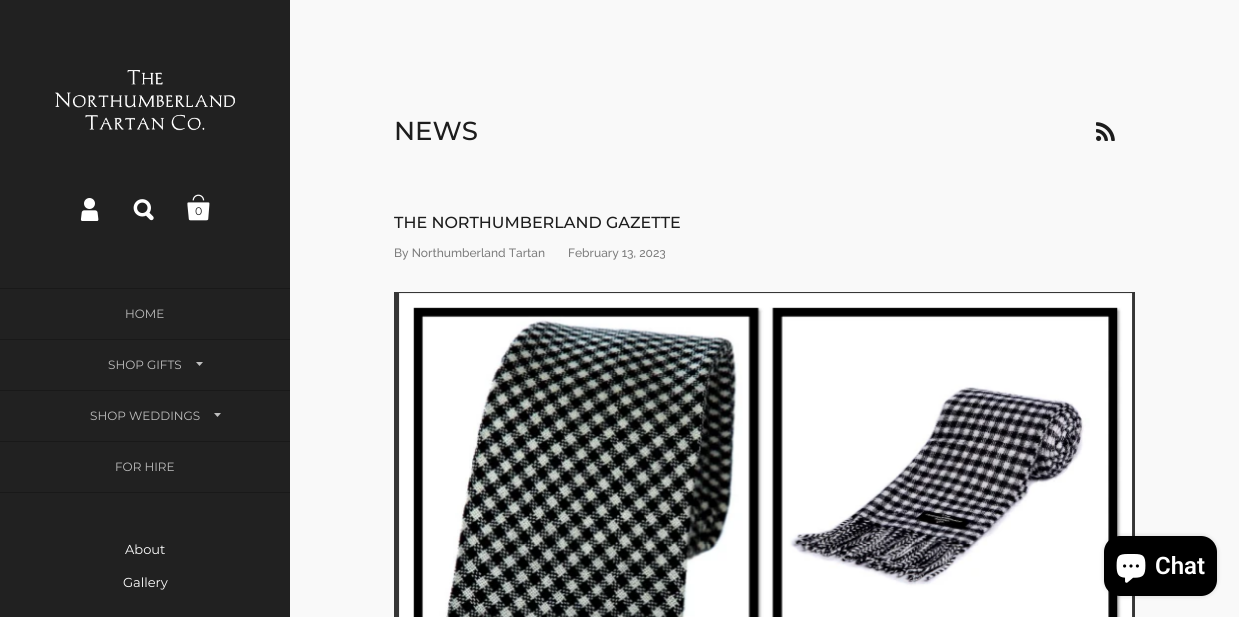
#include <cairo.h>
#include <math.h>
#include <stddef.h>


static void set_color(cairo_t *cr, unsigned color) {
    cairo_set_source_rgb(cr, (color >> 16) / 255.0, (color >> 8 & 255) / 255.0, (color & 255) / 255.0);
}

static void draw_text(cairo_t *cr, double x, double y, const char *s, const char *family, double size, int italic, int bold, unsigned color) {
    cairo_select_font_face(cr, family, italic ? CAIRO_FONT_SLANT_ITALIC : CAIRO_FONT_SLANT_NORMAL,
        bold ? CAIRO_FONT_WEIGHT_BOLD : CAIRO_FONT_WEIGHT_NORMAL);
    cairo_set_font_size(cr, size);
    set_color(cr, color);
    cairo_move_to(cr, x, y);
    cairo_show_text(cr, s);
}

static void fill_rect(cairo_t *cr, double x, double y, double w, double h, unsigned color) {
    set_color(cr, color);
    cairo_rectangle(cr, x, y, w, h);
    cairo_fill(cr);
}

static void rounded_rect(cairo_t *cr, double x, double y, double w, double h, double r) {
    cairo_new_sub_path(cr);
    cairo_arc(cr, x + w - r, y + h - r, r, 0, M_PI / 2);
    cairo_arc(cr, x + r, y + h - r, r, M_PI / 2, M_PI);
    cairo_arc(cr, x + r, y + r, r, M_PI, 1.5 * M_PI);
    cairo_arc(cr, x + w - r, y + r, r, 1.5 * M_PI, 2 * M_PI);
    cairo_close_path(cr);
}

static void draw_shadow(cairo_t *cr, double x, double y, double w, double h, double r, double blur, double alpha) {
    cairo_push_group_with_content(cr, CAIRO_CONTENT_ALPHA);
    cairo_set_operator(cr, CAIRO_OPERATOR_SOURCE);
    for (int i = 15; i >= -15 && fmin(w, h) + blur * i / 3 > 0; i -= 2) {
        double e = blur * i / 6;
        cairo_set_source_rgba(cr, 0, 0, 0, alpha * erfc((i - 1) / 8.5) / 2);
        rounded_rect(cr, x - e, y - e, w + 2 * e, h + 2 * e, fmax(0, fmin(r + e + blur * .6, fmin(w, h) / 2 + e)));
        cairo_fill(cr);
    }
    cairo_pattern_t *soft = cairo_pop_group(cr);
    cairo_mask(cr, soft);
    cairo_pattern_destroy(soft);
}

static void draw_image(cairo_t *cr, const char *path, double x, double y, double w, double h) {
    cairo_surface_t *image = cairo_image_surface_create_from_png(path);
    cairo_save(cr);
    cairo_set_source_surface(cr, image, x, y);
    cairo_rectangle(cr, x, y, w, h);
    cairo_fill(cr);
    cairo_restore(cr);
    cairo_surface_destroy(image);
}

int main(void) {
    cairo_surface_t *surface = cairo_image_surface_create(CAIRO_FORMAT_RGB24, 1239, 617);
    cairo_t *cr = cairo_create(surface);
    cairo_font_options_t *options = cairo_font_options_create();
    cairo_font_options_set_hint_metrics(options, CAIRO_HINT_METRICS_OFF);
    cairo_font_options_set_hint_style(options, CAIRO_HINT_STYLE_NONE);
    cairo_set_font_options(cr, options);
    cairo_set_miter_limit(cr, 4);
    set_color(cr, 0xF9F9F9);
    cairo_paint(cr);
    draw_text(cr, 394, 140, "NEWS", "Montserrat Medium", 26, 0, 0, 0x1D1D1D);
    draw_image(cr, "assets/img1.png", 1096, 122, 19, 19);
    draw_text(cr, 394, 228, "THE NORTHUMBERLAND GAZETTE", "Montserrat Medium", 16, 0, 0, 0x1D1D1D);
    draw_text(cr, 394, 257, "By Northumberland Tartan", "Raleway Medium", 12, 0, 0, 0x7D7D7D);
    draw_text(cr, 568, 257, "February 13, 2023", "Raleway Medium", 12, 0, 0, 0x7D7D7D);
    draw_image(cr, "assets/img2.png", 394, 292, 741, 325);
    fill_rect(cr, 0, 0, 290, 617, 0x212121);
    draw_image(cr, "assets/img3.png", 55, 70, 180, 61);
    draw_image(cr, "assets/img4.png", 80, 198, 19, 23);
    draw_image(cr, "assets/img5.png", 133, 199, 21, 22);
    draw_image(cr, "assets/img6.png", 187, 194, 23, 27);
    draw_text(cr, 195, 215, "0", "Montserrat", 11, 0, 0, 0x1D1D1D);
    fill_rect(cr, 0, 288, 290, 1, 0x191919);
    fill_rect(cr, 0, 339, 290, 1, 0x191919);
    draw_text(cr, 125, 318, "HOME", "Montserrat", 12, 0, 0, 0xBFBFBF);
    fill_rect(cr, 0, 390, 290, 1, 0x191919);
    draw_text(cr, 108, 369, "SHOP GIFTS", "Montserrat", 12, 0, 0, 0xBFBFBF);
    cairo_new_path(cr);
    cairo_move_to(cr, 203, 362);
    cairo_line_to(cr, 199.5, 366);
    cairo_line_to(cr, 196, 362);
    cairo_close_path(cr);
    cairo_fill(cr);
    fill_rect(cr, 0, 441, 290, 1, 0x191919);
    draw_text(cr, 90, 420, "SHOP WEDDINGS", "Montserrat", 12, 0, 0, 0xBFBFBF);
    cairo_new_path(cr);
    cairo_move_to(cr, 221, 413);
    cairo_line_to(cr, 217.5, 417);
    cairo_line_to(cr, 214, 413);
    cairo_close_path(cr);
    cairo_fill(cr);
    fill_rect(cr, 0, 492, 290, 1, 0x191919);
    draw_text(cr, 115, 471, "FOR HIRE", "Montserrat", 12, 0, 0, 0xBFBFBF);
    draw_text(cr, 125, 554, "About", "Montserrat", 13, 0, 0, 0xFFFFFF);
    draw_text(cr, 123, 587, "Gallery", "Montserrat", 13, 0, 0, 0xFFFFFF);
    set_color(cr, 0x000000);
    draw_shadow(cr, 1104, 536, 113, 60, 16, 2.5, 0.15);
    set_color(cr, 0x000000);
    rounded_rect(cr, 1104, 536, 113, 60, 16);
    cairo_fill(cr);
    draw_image(cr, "assets/img7.png", 1116, 554, 30, 29);
    draw_text(cr, 1155, 574, "Chat", "Roboto SemiBold", 24, 0, 0, 0xFFFFFF);
    cairo_surface_write_to_png(surface, "output.png");
    cairo_font_options_destroy(options);
    cairo_destroy(cr);
    cairo_surface_destroy(surface);
    return 0;
}
